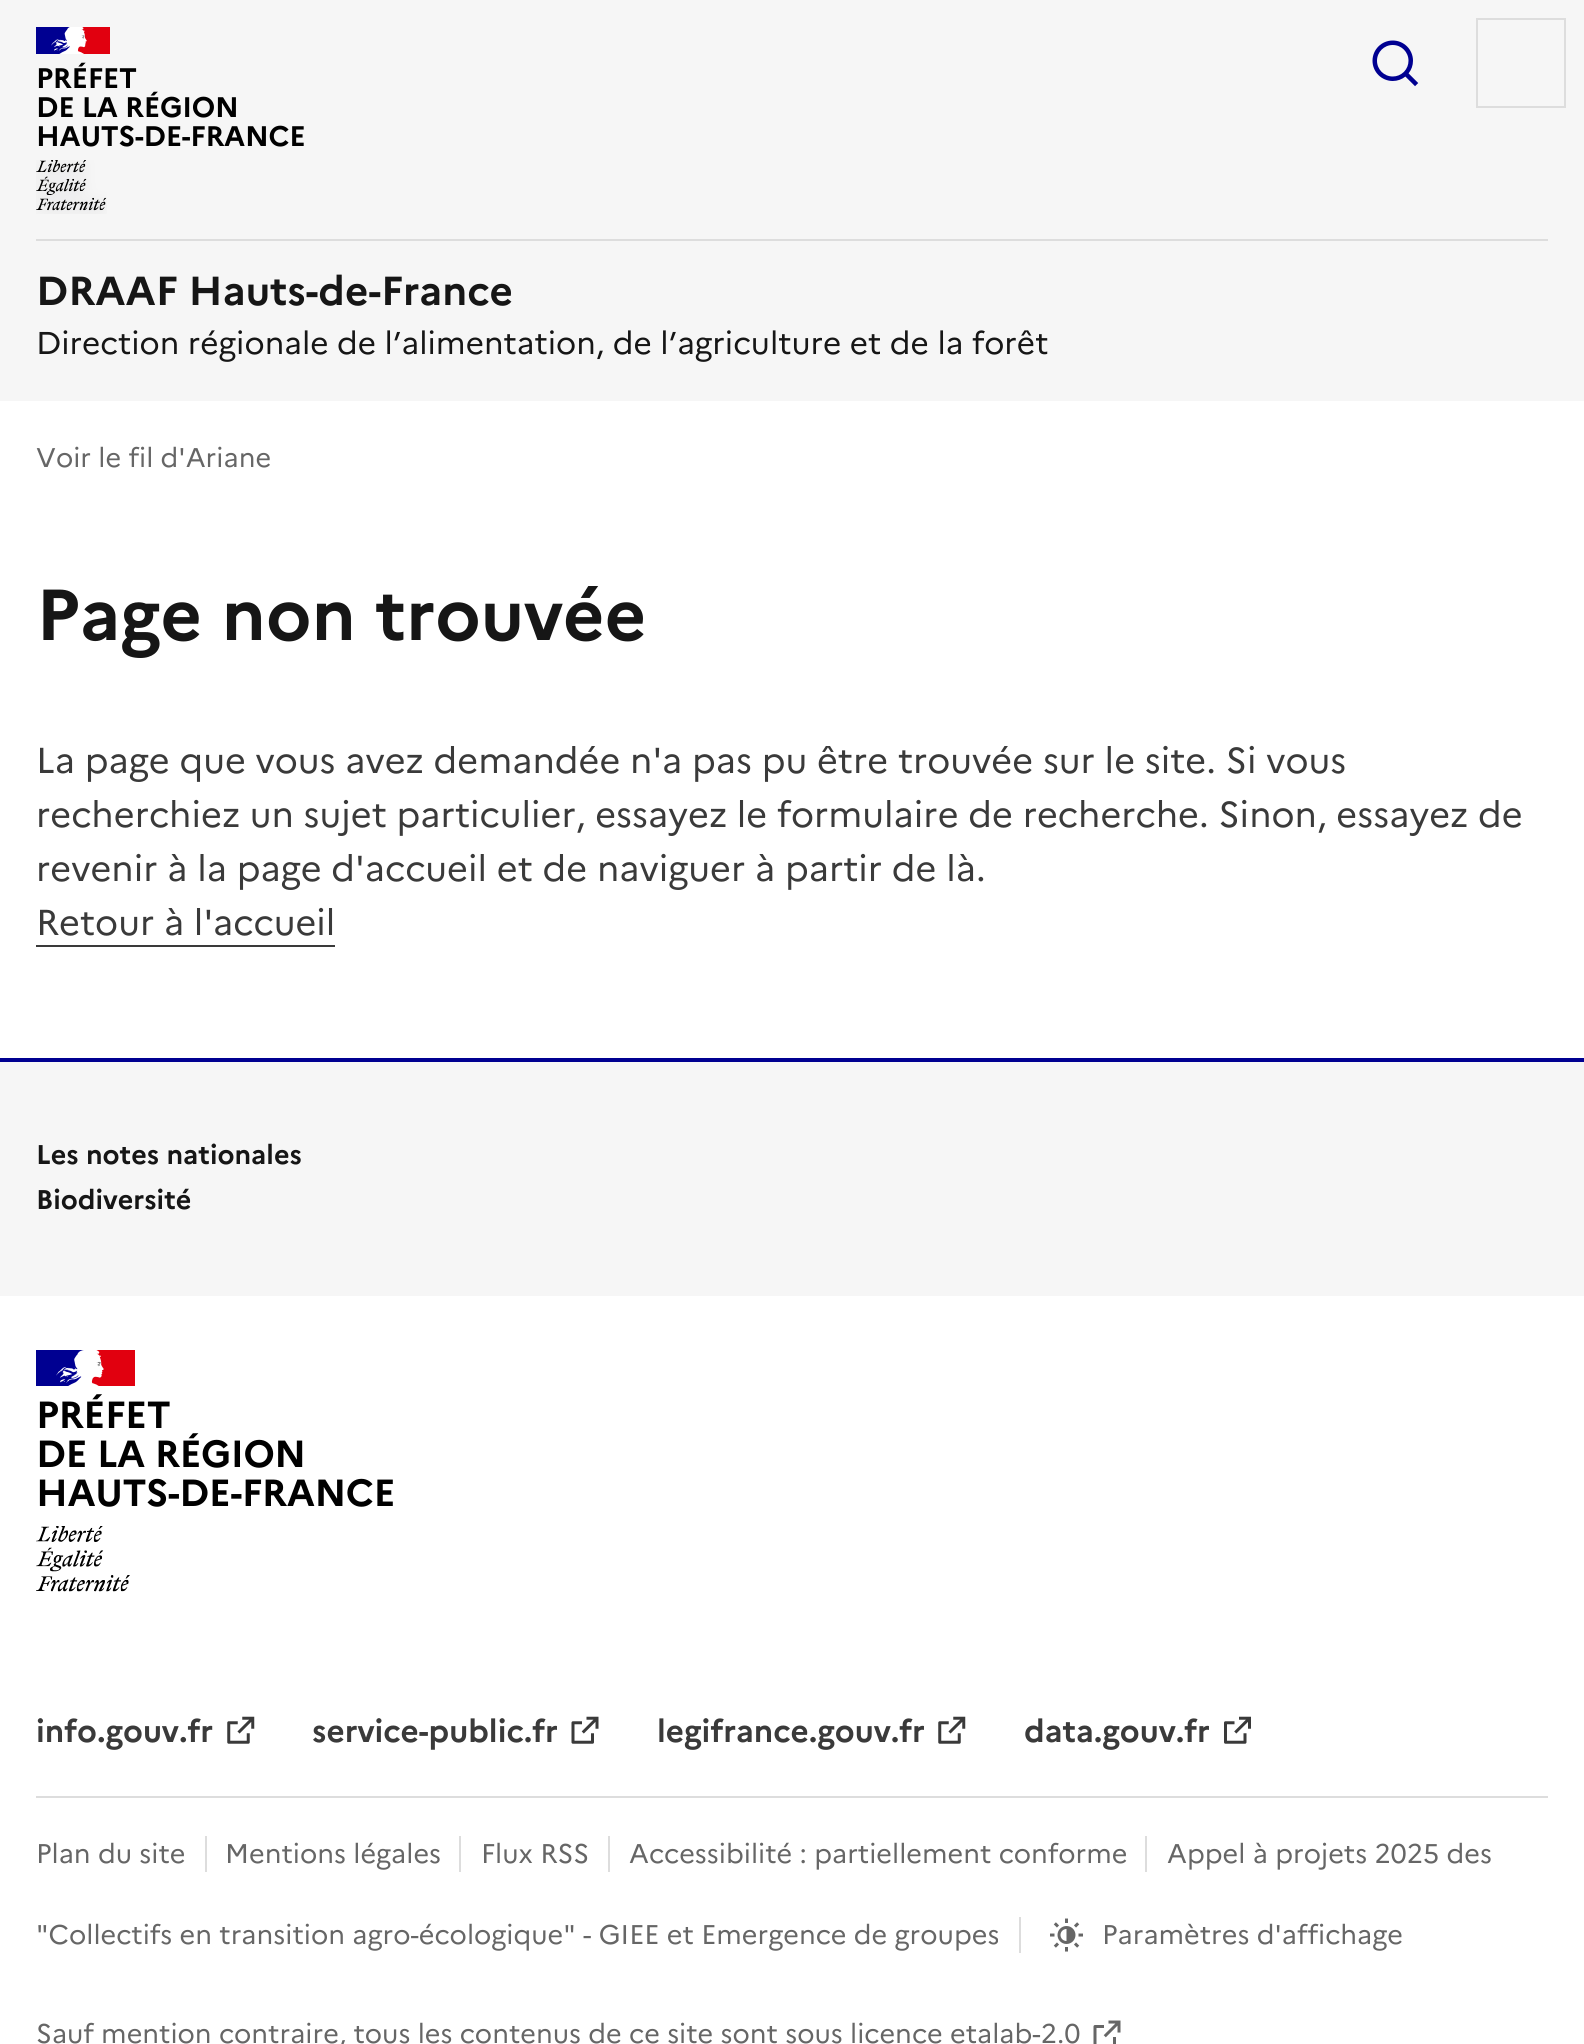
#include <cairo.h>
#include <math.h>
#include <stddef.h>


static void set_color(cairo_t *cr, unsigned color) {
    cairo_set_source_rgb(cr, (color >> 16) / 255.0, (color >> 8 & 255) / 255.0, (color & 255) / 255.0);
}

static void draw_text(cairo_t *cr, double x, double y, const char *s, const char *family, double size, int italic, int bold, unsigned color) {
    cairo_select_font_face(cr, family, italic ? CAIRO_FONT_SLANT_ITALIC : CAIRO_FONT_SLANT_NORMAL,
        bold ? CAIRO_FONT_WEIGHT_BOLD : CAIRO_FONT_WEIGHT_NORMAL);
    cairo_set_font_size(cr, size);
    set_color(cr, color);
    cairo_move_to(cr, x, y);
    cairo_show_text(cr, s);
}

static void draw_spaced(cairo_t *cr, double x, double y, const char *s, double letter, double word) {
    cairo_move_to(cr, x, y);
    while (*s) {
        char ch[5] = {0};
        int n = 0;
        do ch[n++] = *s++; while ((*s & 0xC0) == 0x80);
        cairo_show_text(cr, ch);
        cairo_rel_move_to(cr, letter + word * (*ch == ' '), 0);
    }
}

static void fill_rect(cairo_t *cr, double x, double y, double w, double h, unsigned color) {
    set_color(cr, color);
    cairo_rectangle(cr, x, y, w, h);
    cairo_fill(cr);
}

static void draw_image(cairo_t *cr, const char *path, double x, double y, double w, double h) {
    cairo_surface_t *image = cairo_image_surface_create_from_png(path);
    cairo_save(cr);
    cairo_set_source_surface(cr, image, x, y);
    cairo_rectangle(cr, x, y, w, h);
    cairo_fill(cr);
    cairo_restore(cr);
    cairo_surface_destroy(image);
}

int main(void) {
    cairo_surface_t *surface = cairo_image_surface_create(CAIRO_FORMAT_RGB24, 1584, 2044);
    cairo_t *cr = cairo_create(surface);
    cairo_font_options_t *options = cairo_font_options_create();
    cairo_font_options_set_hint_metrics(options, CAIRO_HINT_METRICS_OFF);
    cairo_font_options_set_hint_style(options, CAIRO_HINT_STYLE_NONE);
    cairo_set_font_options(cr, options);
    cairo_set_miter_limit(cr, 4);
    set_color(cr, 0xFFFFFF);
    cairo_paint(cr);
    fill_rect(cr, 0, 0, 1584, 401, 0xF6F6F6);
    fill_rect(cr, 36, 27, 34, 27, 0x000091);
    fill_rect(cr, 77, 27, 33, 27, 0xE1000F);
    draw_image(cr, "assets/img1.png", 51, 27, 36, 27);
    cairo_select_font_face(cr, "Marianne", CAIRO_FONT_SLANT_NORMAL, CAIRO_FONT_WEIGHT_BOLD);
    cairo_set_font_size(cr, 28.25);
    set_color(cr, 0x000000);
    draw_spaced(cr, 36, 88, "PRÉFET", -0.25, 0);
    draw_spaced(cr, 36, 117, "DE LA RÉGION", -0.25, 0);
    draw_spaced(cr, 36, 146, "HAUTS-DE-FRANCE", -0.25, 0);
    draw_image(cr, "assets/img2.png", 36, 160, 71, 54);
    draw_image(cr, "assets/img3.png", 1372, 40, 47, 47);
    cairo_rectangle(cr, 1477, 19, 88, 88);
    set_color(cr, 0xDDDDDD);
    cairo_stroke(cr);
    fill_rect(cr, 36, 239, 1512, 2, 0xDDDDDD);
    draw_text(cr, 36, 305, "DRAAF Hauts-de-France", "Marianne", 40.5, 0, 1, 0x161616);
    draw_text(cr, 36, 354, "Direction régionale de l’alimentation, de l’agriculture et de la forêt", "Marianne", 31.5, 0, 0, 0x161616);
    draw_text(cr, 36, 467, "Voir le fil d'Ariane", "Marianne", 27, 0, 0, 0x666666);
    draw_text(cr, 36, 640, "Page non trouvée", "Marianne", 72, 0, 1, 0x161616);
    draw_text(cr, 36, 773, "La page que vous avez demandée n'a pas pu être trouvée sur le site. Si vous", "Marianne", 36, 0, 0, 0x3A3A3A);
    draw_text(cr, 36, 827, "recherchiez un sujet particulier, essayez le formulaire de recherche. Sinon, essayez de", "Marianne", 36, 0, 0, 0x3A3A3A);
    draw_text(cr, 36, 881, "revenir à la page d'accueil et de naviguer à partir de là.", "Marianne", 36, 0, 0, 0x3A3A3A);
    draw_text(cr, 36, 935, "Retour à l'accueil", "Marianne", 36, 0, 0, 0x3A3A3A);
    fill_rect(cr, 36, 945, 299, 2, 0x3A3A3A);
    fill_rect(cr, 0, 1058, 1584, 4, 0x000091);
    fill_rect(cr, 0, 1062, 1584, 234, 0xF6F6F6);
    draw_text(cr, 36, 1164, "Les notes nationales", "Marianne", 27, 0, 1, 0x161616);
    draw_text(cr, 36, 1209, "Biodiversité", "Marianne", 27, 0, 1, 0x161616);
    fill_rect(cr, 36, 1350, 48, 36, 0x000091);
    fill_rect(cr, 91, 1350, 44, 36, 0xE1000F);
    draw_image(cr, "assets/img4.png", 56, 1350, 48, 36);
    cairo_set_font_size(cr, 37.75);
    set_color(cr, 0x000000);
    draw_spaced(cr, 36, 1428, "PRÉFET", -0.4, 0);
    draw_spaced(cr, 36, 1467, "DE LA RÉGION", -0.4, 0);
    draw_spaced(cr, 36, 1506, "HAUTS-DE-FRANCE", -0.4, 0);
    draw_image(cr, "assets/img5.png", 36, 1526, 94, 66);
    draw_text(cr, 36, 1742, "info.gouv.fr", "Marianne", 31.5, 0, 1, 0x3A3A3A);
    draw_image(cr, "assets/img6.png", 227, 1716, 28, 28);
    draw_text(cr, 312, 1742, "service-public.fr", "Marianne", 31.5, 0, 1, 0x3A3A3A);
    draw_image(cr, "assets/img7.png", 571, 1716, 28, 28);
    draw_text(cr, 657, 1742, "legifrance.gouv.fr", "Marianne", 31.5, 0, 1, 0x3A3A3A);
    draw_image(cr, "assets/img6.png", 938, 1716, 28, 28);
    draw_text(cr, 1024, 1742, "data.gouv.fr", "Marianne", 31.5, 0, 1, 0x3A3A3A);
    draw_image(cr, "assets/img8.png", 1224, 1716, 27, 28);
    fill_rect(cr, 36, 1796, 1512, 2, 0xDDDDDD);
    draw_text(cr, 36, 1863, "Plan du site", "Marianne", 27, 0, 0, 0x666666);
    fill_rect(cr, 1145, 1836, 2, 36, 0xDDDDDD);
    draw_text(cr, 1167, 1863, "Appel à projets 2025 des", "Marianne", 27, 0, 0, 0x666666);
    draw_text(cr, 36, 1944, "\"Collectifs en transition agro-écologique\" - GIEE et Emergence de groupes", "Marianne", 27, 0, 0, 0x666666);
    fill_rect(cr, 205, 1836, 2, 36, 0xDDDDDD);
    draw_text(cr, 225, 1863, "Mentions légales", "Marianne", 27, 0, 0, 0x666666);
    fill_rect(cr, 459, 1836, 2, 36, 0xDDDDDD);
    draw_text(cr, 481, 1863, "Flux RSS", "Marianne", 27, 0, 0, 0x666666);
    fill_rect(cr, 608, 1836, 2, 36, 0xDDDDDD);
    draw_text(cr, 629, 1863, "Accessibilité : partiellement conforme", "Marianne", 27, 0, 0, 0x666666);
    fill_rect(cr, 1019, 1917, 2, 36, 0xDDDDDD);
    draw_image(cr, "assets/img9.png", 1050, 1918, 33, 34);
    draw_text(cr, 1102, 1944, "Paramètres d'affichage", "Marianne", 27, 0, 0, 0x666666);
    draw_text(cr, 36, 2043, "Sauf mention contraire, tous les contenus de ce site sont sous licence etalab-2.0", "Marianne", 27, 0, 0, 0x666666);
    draw_image(cr, "assets/img10.png", 1093, 2020, 28, 24);
    cairo_surface_write_to_png(surface, "output.png");
    cairo_font_options_destroy(options);
    cairo_destroy(cr);
    cairo_surface_destroy(surface);
    return 0;
}
